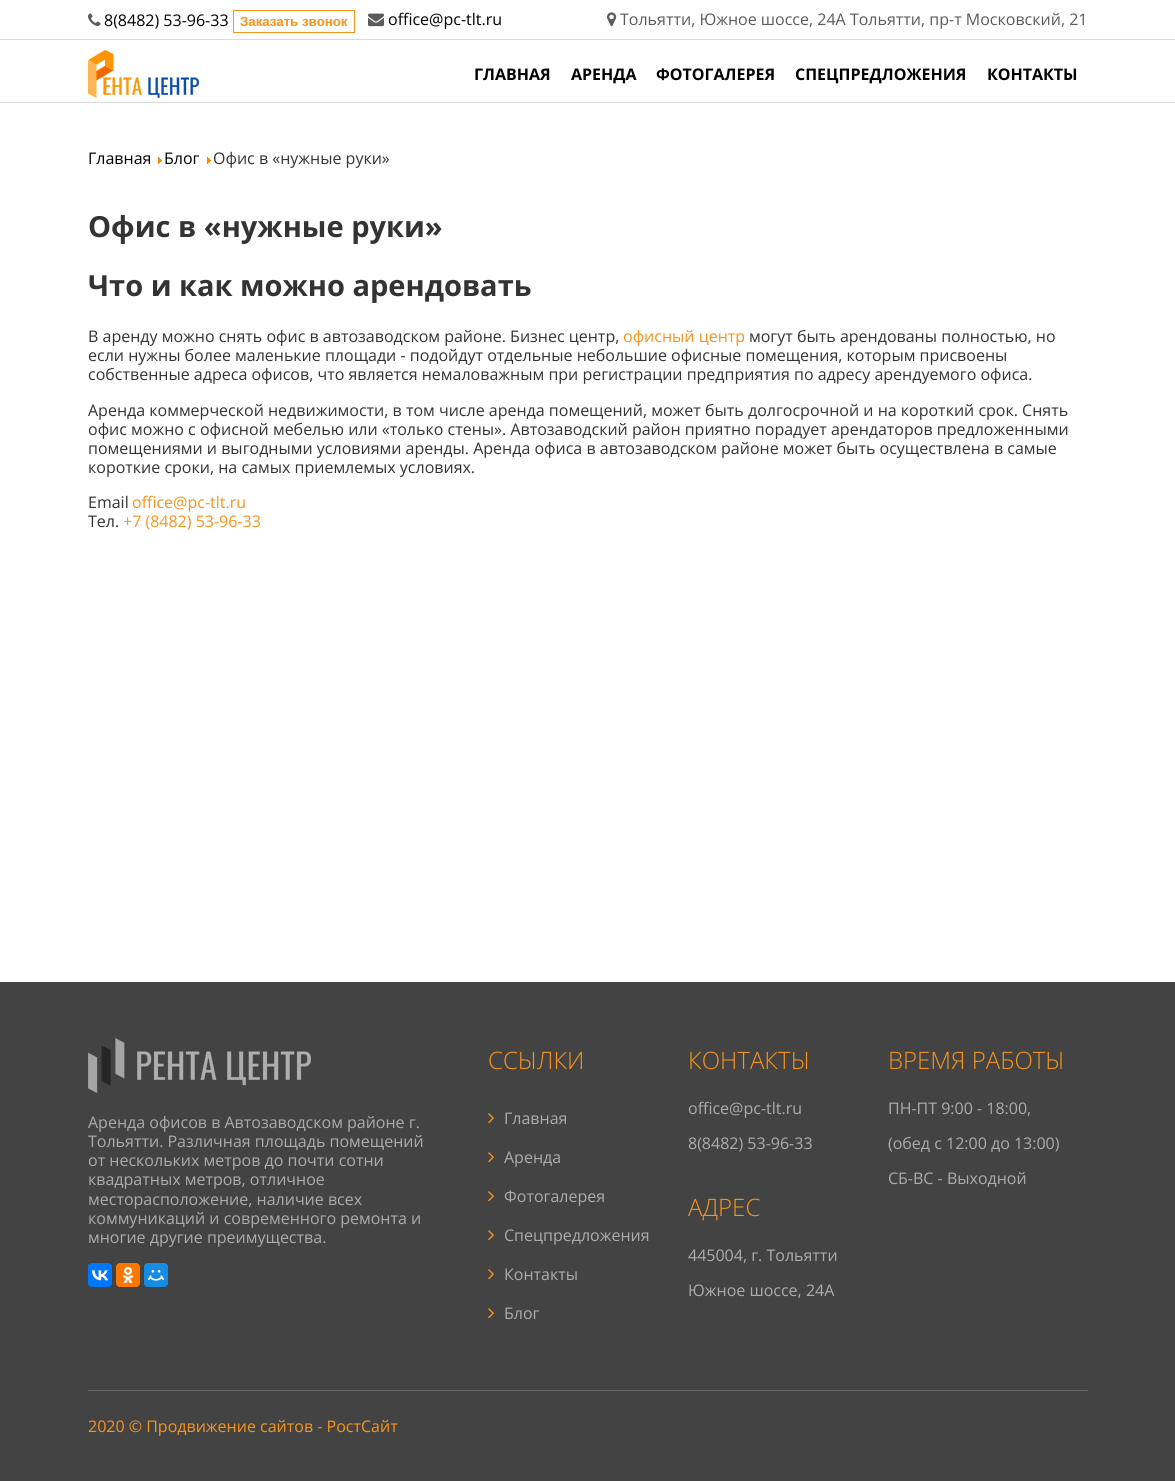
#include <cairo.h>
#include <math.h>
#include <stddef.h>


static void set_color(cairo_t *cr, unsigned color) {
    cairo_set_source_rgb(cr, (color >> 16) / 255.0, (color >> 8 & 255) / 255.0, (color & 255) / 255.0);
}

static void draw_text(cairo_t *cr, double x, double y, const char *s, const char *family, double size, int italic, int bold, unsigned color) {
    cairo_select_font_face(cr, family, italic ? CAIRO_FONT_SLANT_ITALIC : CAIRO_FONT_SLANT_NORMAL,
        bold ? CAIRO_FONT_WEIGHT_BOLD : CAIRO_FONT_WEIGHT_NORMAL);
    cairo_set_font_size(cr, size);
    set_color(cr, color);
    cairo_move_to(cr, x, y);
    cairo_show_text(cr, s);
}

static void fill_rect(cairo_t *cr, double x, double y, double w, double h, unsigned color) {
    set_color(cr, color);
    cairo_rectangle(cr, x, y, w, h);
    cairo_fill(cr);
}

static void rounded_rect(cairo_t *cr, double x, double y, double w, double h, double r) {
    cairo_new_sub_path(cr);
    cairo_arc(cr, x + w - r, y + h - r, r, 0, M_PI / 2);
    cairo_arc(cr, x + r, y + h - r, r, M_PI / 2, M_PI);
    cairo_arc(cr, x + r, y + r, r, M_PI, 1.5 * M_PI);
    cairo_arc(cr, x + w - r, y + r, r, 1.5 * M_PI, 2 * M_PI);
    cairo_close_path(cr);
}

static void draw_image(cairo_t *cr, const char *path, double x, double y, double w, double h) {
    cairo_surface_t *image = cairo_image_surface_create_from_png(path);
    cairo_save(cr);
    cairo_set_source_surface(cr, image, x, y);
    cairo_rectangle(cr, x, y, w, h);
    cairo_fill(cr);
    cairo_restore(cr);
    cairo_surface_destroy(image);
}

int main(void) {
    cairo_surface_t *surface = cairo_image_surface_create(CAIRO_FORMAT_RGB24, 1175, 1481);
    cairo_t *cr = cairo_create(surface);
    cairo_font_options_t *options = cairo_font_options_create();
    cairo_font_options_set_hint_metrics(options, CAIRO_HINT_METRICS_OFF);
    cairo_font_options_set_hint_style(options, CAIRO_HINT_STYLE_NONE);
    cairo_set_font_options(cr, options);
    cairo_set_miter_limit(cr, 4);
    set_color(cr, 0xFFFFFF);
    cairo_paint(cr);
    fill_rect(cr, 0, 102, 1175, 1, 0xD9D9D9);
    fill_rect(cr, 0, 39, 1175, 1, 0xD9D9D9);
    draw_image(cr, "assets/img1.png", 88, 13, 13, 13);
    draw_text(cr, 104, 26, "8(8482) 53-96-33", "Open Sans", 16, 0, 0, 0x000000);
    cairo_rectangle(cr, 233.5, 10.5, 121, 22);
    set_color(cr, 0xF7941D);
    cairo_set_line_width(cr, 1);
    cairo_stroke(cr);
    draw_text(cr, 240, 26, "Заказать звонок", "Liberation Sans", 13.25, 0, 1, 0xF7941D);
    draw_image(cr, "assets/img2.png", 368, 13, 16, 14);
    draw_text(cr, 388, 25, "office@pc-tlt.ru", "Open Sans", 16, 0, 0, 0x000000);
    draw_image(cr, "assets/img3.png", 607, 12, 10, 15);
    draw_text(cr, 620, 25, "Тольятти, Южное шоссе, 24А Тольятти, пр-т Московский, 21", "Open Sans", 16, 0, 0, 0x5B5B5B);
    draw_image(cr, "assets/img4.png", 88, 50, 111, 48);
    draw_text(cr, 474, 80, "ГЛАВНАЯ", "Open Sans", 16, 0, 1, 0x000000);
    draw_text(cr, 571, 80, "АРЕНДА", "Open Sans", 16, 0, 1, 0x000000);
    draw_text(cr, 656, 80, "ФОТОГАЛЕРЕЯ", "Open Sans", 16, 0, 1, 0x000000);
    draw_text(cr, 795, 80, "СПЕЦПРЕДЛОЖЕНИЯ", "Open Sans", 16, 0, 1, 0x000000);
    draw_text(cr, 987, 80, "КОНТАКТЫ", "Open Sans", 16, 0, 1, 0x000000);
    draw_text(cr, 88, 164, "Главная", "Open Sans", 16, 0, 0, 0x000000);
    draw_image(cr, "assets/img5.png", 158, 157, 4, 7);
    draw_text(cr, 164, 164, "Блог", "Open Sans", 16, 0, 0, 0x000000);
    draw_image(cr, "assets/img5.png", 207, 157, 4, 7);
    draw_text(cr, 213, 164, "Офис в «нужные руки»", "Open Sans", 16, 0, 0, 0x333333);
    draw_text(cr, 88, 237, "Офис в «нужные руки»", "Open Sans", 29, 0, 1, 0x333333);
    draw_text(cr, 88, 296, "Что и как можно арендовать", "Open Sans", 29, 0, 1, 0x333333);
    draw_text(cr, 88, 342, "В аренду можно снять офис в автозаводском районе. Бизнес центр,", "Open Sans", 16, 0, 0, 0x333333);
    draw_text(cr, 623, 342, "офисный центр", "Open Sans", 16, 0, 0, 0xF7941D);
    draw_text(cr, 749, 342, "могут быть арендованы полностью, но", "Open Sans", 16, 0, 0, 0x333333);
    draw_text(cr, 88, 361, "если нужны более маленькие площади - подойдут отдельные небольшие офисные помещения, которым присвоены", "Open Sans", 16, 0, 0, 0x333333);
    draw_text(cr, 88, 380, "собственные адреса офисов, что является немаловажным при регистрации предприятия по адресу арендуемого офиса.", "Open Sans", 16, 0, 0, 0x333333);
    draw_text(cr, 88, 416, "Аренда коммерческой недвижимости, в том числе аренда помещений, может быть долгосрочной и на короткий срок. Снять", "Open Sans", 16, 0, 0, 0x333333);
    draw_text(cr, 88, 435, "офис можно с офисной мебелью или «только стены». Автозаводский район приятно порадует арендаторов предложенными", "Open Sans", 16, 0, 0, 0x333333);
    draw_text(cr, 88, 454, "помещениями и выгодными условиями аренды. Аренда офиса в автозаводском районе может быть осуществлена в самые", "Open Sans", 16, 0, 0, 0x333333);
    draw_text(cr, 88, 473, "короткие сроки, на самых приемлемых условиях.", "Open Sans", 16, 0, 0, 0x333333);
    draw_text(cr, 88, 508, "Email", "Open Sans", 16, 0, 0, 0x333333);
    draw_text(cr, 132, 508, "office@pc-tlt.ru", "Open Sans", 16, 0, 0, 0xF7941D);
    draw_text(cr, 88, 527, "Тел.", "Open Sans", 16, 0, 0, 0x333333);
    draw_text(cr, 123, 527, "+7 (8482) 53-96-33", "Open Sans", 16, 0, 0, 0xF7941D);
    fill_rect(cr, 0, 982, 1175, 499, 0x434343);
    draw_image(cr, "assets/img6.png", 88, 1038, 223, 55);
    draw_text(cr, 88, 1128, "Аренда офисов в Автозаводском районе г.", "Open Sans", 16, 0, 0, 0xACACAC);
    draw_text(cr, 88, 1147, "Тольятти. Различная площадь помещений", "Open Sans", 16, 0, 0, 0xACACAC);
    draw_text(cr, 88, 1166, "от нескольких метров до почти сотни", "Open Sans", 16, 0, 0, 0xACACAC);
    draw_text(cr, 88, 1185, "квадратных метров, отличное", "Open Sans", 16, 0, 0, 0xACACAC);
    draw_text(cr, 88, 1205, "месторасположение, наличие всех", "Open Sans", 16, 0, 0, 0xACACAC);
    draw_text(cr, 88, 1224, "коммуникаций и современного ремонта и", "Open Sans", 16, 0, 0, 0xACACAC);
    draw_text(cr, 88, 1243, "многие другие преимущества.", "Open Sans", 16, 0, 0, 0xACACAC);
    set_color(cr, 0x0077FF);
    rounded_rect(cr, 88, 1263, 24, 24, 4);
    cairo_fill(cr);
    draw_image(cr, "assets/img7.png", 92, 1270, 16, 11);
    set_color(cr, 0xFF7700);
    rounded_rect(cr, 116, 1263, 24, 24, 4);
    cairo_fill(cr);
    draw_image(cr, "assets/img8.png", 122, 1267, 12, 16);
    set_color(cr, 0x168DE2);
    rounded_rect(cr, 144, 1263, 24, 24, 4);
    cairo_fill(cr);
    draw_image(cr, "assets/img9.png", 148, 1270, 16, 11);
    draw_text(cr, 488, 1069, "ССЫЛКИ", "Open Sans Light", 24, 0, 0, 0xF7941D);
    draw_image(cr, "assets/img10.png", 488, 1113, 6, 11);
    draw_text(cr, 504, 1124, "Главная", "Open Sans", 16, 0, 0, 0xACACAC);
    draw_image(cr, "assets/img10.png", 488, 1152, 6, 11);
    draw_text(cr, 504, 1163, "Аренда", "Open Sans", 16, 0, 0, 0xACACAC);
    draw_image(cr, "assets/img10.png", 488, 1191, 6, 11);
    draw_text(cr, 504, 1202, "Фотогалерея", "Open Sans", 16, 0, 0, 0xACACAC);
    draw_image(cr, "assets/img10.png", 488, 1230, 6, 11);
    draw_text(cr, 504, 1241, "Спецпредложения", "Open Sans", 16, 0, 0, 0xACACAC);
    draw_image(cr, "assets/img10.png", 488, 1269, 6, 11);
    draw_text(cr, 504, 1280, "Контакты", "Open Sans", 16, 0, 0, 0xACACAC);
    draw_image(cr, "assets/img10.png", 488, 1308, 6, 11);
    draw_text(cr, 504, 1319, "Блог", "Open Sans", 16, 0, 0, 0xACACAC);
    draw_text(cr, 688, 1069, "КОНТАКТЫ", "Open Sans Light", 24, 0, 0, 0xF7941D);
    draw_text(cr, 688, 1114, "office@pc-tlt.ru", "Open Sans", 16, 0, 0, 0xACACAC);
    draw_text(cr, 688, 1149, "8(8482) 53-96-33", "Open Sans", 16, 0, 0, 0xACACAC);
    draw_text(cr, 688, 1216, "АДРЕС", "Open Sans Light", 24, 0, 0, 0xF7941D);
    draw_text(cr, 688, 1261, "445004, г. Тольятти", "Open Sans", 16, 0, 0, 0xACACAC);
    draw_text(cr, 688, 1296, "Южное шоссе, 24А", "Open Sans", 16, 0, 0, 0xACACAC);
    draw_text(cr, 888, 1069, "ВРЕМЯ РАБОТЫ", "Open Sans Light", 24, 0, 0, 0xF7941D);
    draw_text(cr, 888, 1114, "ПН-ПТ 9:00 - 18:00,", "Open Sans", 16, 0, 0, 0xACACAC);
    draw_text(cr, 888, 1149, "(обед с 12:00 до 13:00)", "Open Sans", 16, 0, 0, 0xACACAC);
    draw_text(cr, 888, 1184, "СБ-ВС - Выходной", "Open Sans", 16, 0, 0, 0xACACAC);
    fill_rect(cr, 88, 1390, 1000, 1, 0x656565);
    draw_text(cr, 88, 1432, "2020 © Продвижение сайтов - РостСайт", "Open Sans", 16, 0, 0, 0xF7941D);
    cairo_surface_write_to_png(surface, "output.png");
    cairo_font_options_destroy(options);
    cairo_destroy(cr);
    cairo_surface_destroy(surface);
    return 0;
}
